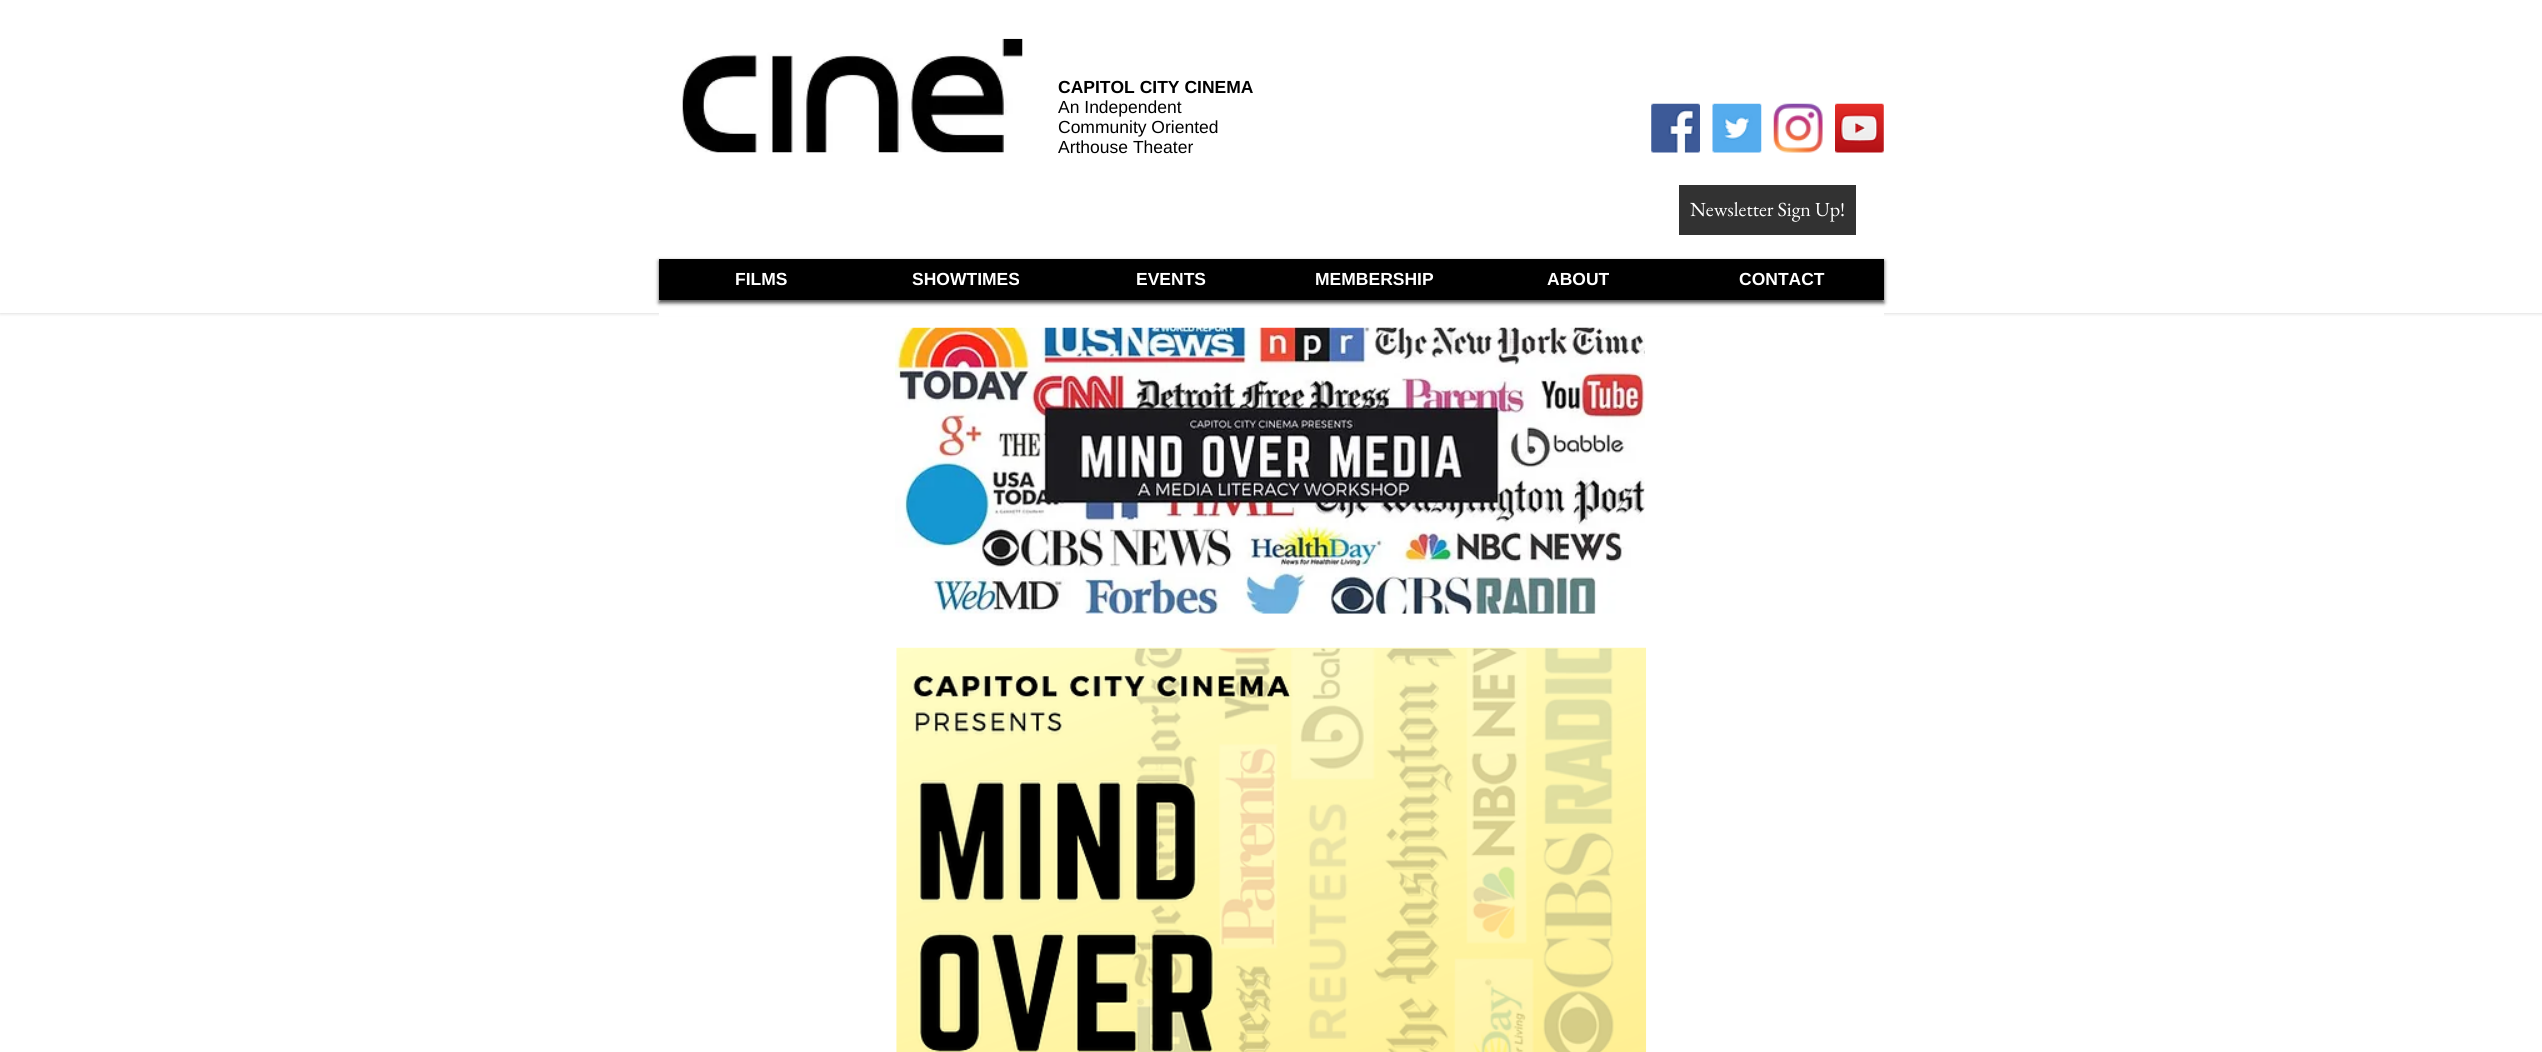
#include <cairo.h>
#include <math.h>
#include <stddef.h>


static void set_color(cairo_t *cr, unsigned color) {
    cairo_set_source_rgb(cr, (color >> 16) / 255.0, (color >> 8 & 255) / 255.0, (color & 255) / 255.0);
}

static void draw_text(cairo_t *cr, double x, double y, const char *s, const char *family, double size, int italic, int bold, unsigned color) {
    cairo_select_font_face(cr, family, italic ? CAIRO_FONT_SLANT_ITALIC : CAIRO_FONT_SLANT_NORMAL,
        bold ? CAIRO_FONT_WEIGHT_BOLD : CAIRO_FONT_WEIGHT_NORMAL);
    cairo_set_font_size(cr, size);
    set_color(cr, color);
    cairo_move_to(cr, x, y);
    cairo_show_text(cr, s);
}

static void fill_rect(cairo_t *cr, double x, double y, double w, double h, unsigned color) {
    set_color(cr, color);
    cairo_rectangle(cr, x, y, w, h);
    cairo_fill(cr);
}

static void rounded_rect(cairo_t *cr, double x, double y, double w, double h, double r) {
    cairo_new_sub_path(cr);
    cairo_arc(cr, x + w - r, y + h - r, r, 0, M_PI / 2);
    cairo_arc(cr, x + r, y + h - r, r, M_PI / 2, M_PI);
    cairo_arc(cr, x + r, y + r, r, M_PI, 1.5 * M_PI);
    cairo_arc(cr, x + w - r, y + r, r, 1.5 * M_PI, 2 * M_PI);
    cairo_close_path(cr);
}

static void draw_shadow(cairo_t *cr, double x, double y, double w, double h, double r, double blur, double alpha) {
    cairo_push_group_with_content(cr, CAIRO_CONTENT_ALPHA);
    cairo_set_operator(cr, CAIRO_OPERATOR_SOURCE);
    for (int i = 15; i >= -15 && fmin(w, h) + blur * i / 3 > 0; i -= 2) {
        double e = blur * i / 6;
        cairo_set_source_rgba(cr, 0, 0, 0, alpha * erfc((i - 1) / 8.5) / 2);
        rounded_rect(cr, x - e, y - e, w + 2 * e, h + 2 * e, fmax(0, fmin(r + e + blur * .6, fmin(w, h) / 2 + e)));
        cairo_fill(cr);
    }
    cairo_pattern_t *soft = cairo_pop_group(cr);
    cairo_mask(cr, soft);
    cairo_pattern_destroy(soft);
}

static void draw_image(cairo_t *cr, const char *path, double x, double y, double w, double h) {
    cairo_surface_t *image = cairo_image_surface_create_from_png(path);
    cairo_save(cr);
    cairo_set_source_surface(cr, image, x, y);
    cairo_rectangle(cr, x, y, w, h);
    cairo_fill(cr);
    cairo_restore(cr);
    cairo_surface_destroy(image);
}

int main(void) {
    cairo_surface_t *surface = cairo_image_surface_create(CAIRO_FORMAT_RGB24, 2542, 1052);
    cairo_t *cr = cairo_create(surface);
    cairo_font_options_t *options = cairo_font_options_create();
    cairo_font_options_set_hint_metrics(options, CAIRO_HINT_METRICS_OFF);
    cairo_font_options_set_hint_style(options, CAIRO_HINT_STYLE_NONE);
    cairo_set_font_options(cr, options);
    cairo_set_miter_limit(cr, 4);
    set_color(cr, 0xFFFFFF);
    cairo_paint(cr);
    set_color(cr, 0x000000);
    draw_shadow(cr, 0, 0, 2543, 313, 0, 2, 0.2);
    fill_rect(cr, 0, 0, 2542, 313, 0xFFFFFF);
    draw_image(cr, "assets/img1.png", 682, 38, 341, 115);
    draw_text(cr, 1058, 93, "CAPITOL CITY CINEMA", "Liberation Sans", 17.5, 0, 1, 0x000000);
    draw_text(cr, 1058, 113, "An Independent", "Liberation Sans", 17.5, 0, 0, 0x000000);
    draw_text(cr, 1058, 133, "Community Oriented", "Liberation Sans", 17.5, 0, 0, 0x000000);
    draw_text(cr, 1058, 153, "Arthouse Theater", "Liberation Sans", 17.5, 0, 0, 0x000000);
    draw_image(cr, "assets/img2.png", 1651, 103, 49, 50);
    draw_image(cr, "assets/img3.png", 1712, 103, 50, 50);
    draw_image(cr, "assets/img4.png", 1773, 103, 50, 50);
    draw_image(cr, "assets/img5.png", 1835, 103, 49, 50);
    fill_rect(cr, 1679, 185, 177, 50, 0x323232);
    draw_text(cr, 1690, 216, "Newsletter Sign Up!", "EB Garamond", 20, 0, 0, 0xFFFFFF);
    set_color(cr, 0x000000);
    draw_shadow(cr, 659, 261, 1225, 42, 0, 2, 0.7);
    fill_rect(cr, 659, 259, 1225, 41, 0x000000);
    draw_text(cr, 735, 285, "FILMS", "Liberation Sans", 17.5, 0, 1, 0xFFFFFF);
    draw_text(cr, 912, 285, "SHOWTIMES", "Liberation Sans", 17.5, 0, 1, 0xFFFFFF);
    draw_text(cr, 1136, 285, "EVENTS", "Liberation Sans", 17.5, 0, 1, 0xFFFFFF);
    draw_text(cr, 1315, 285, "MEMBERSHIP", "Liberation Sans", 17.5, 0, 1, 0xFFFFFF);
    draw_text(cr, 1547, 285, "ABOUT", "Liberation Sans", 17.5, 0, 1, 0xFFFFFF);
    draw_text(cr, 1739, 285, "CONTACT", "Liberation Sans", 17.5, 0, 1, 0xFFFFFF);
    fill_rect(cr, 659, 313, 1225, 3, 0xFFFFFF);
    draw_image(cr, "assets/img6.png", 895, 327, 750, 287);
    draw_image(cr, "assets/img7.png", 896, 647, 751, 405);
    cairo_surface_write_to_png(surface, "output.png");
    cairo_font_options_destroy(options);
    cairo_destroy(cr);
    cairo_surface_destroy(surface);
    return 0;
}
